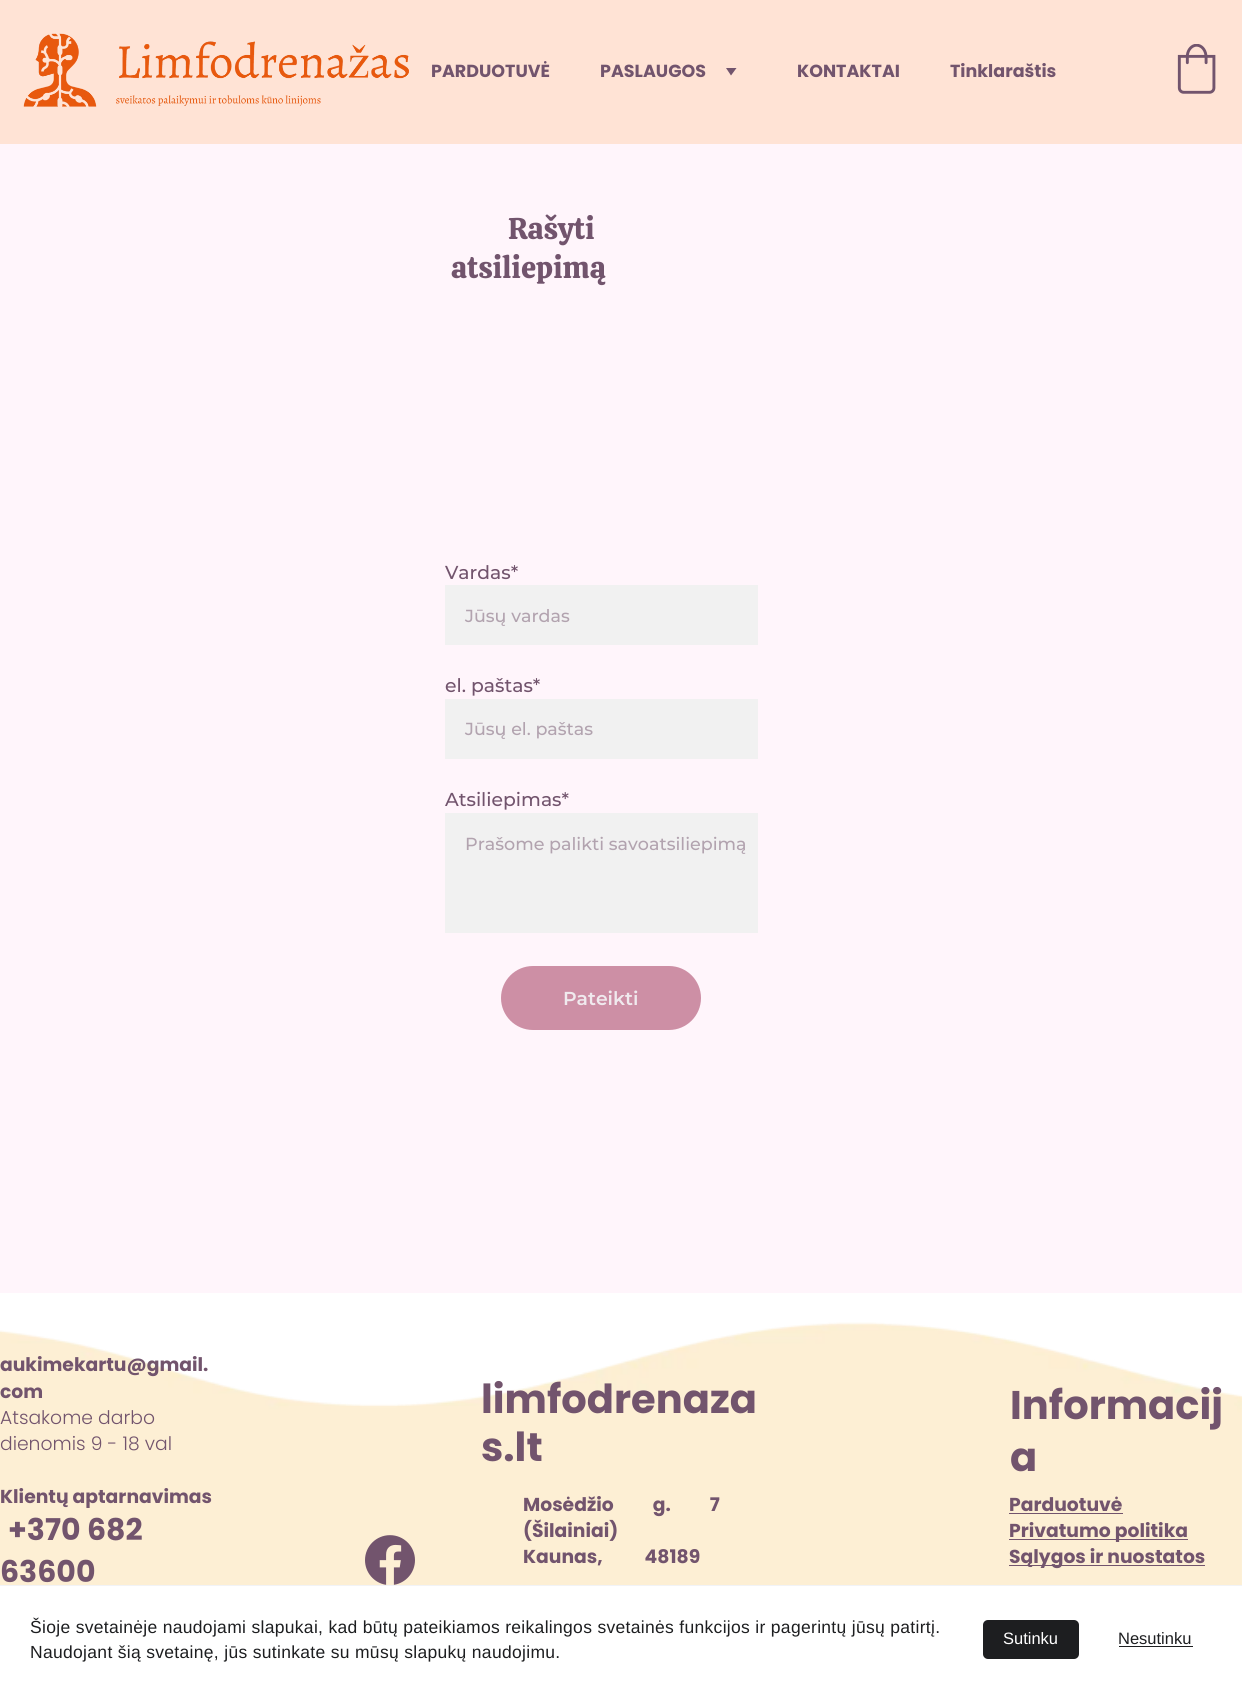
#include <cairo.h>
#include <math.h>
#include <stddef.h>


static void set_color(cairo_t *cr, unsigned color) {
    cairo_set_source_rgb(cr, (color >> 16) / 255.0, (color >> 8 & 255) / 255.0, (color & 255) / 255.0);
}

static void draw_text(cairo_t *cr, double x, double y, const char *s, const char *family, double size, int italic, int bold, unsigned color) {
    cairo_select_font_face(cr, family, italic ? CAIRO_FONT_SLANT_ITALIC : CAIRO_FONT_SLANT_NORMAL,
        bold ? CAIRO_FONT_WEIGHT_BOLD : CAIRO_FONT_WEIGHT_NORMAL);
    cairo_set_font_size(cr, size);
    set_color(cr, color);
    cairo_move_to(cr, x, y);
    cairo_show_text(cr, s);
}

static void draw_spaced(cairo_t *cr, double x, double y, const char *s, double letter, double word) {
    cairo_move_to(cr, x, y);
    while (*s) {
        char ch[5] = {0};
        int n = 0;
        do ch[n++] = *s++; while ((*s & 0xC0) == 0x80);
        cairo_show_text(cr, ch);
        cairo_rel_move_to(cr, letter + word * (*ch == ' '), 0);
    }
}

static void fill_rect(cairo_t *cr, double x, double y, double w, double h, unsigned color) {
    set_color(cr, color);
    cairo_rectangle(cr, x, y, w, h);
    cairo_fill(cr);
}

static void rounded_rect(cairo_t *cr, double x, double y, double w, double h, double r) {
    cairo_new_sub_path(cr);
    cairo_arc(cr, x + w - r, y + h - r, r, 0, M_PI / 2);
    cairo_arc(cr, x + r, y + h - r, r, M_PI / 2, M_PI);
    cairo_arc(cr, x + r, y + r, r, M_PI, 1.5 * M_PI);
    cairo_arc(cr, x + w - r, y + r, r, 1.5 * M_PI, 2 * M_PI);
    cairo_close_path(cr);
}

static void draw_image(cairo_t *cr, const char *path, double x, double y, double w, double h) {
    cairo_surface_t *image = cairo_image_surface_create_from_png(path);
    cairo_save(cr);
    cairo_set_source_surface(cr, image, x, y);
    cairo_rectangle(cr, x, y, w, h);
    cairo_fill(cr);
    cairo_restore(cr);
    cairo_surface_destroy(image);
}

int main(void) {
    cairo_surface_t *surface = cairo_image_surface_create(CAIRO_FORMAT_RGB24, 1242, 1691);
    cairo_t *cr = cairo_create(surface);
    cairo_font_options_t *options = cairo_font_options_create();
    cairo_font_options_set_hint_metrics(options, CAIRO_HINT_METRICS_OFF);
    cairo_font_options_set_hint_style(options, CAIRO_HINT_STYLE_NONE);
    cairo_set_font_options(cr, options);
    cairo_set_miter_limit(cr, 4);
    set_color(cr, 0xFFFFFF);
    cairo_paint(cr);
    fill_rect(cr, 0, 0, 1242, 144, 0xFFE3D5);
    draw_image(cr, "assets/img1.png", 23, 33, 386, 74);
    draw_text(cr, 431, 77, "PARDUOTUVĖ", "Poppins", 17.5, 0, 1, 0x72546D);
    draw_text(cr, 600, 77, "PASLAUGOS", "Poppins", 17.5, 0, 1, 0x72546D);
    cairo_new_path(cr);
    cairo_move_to(cr, 731, 75.5);
    cairo_line_to(cr, 726, 68);
    cairo_line_to(cr, 736.5, 68);
    cairo_close_path(cr);
    cairo_fill(cr);
    draw_text(cr, 797, 77, "KONTAKTAI", "Poppins", 17.5, 0, 1, 0x72546D);
    draw_text(cr, 950, 77, "Tinklaraštis", "Poppins", 17.5, 0, 1, 0x72546D);
    draw_image(cr, "assets/img2.png", 1177, 44, 39, 50);
    fill_rect(cr, 0, 144, 1242, 1149, 0xFFF5FB);
    draw_text(cr, 508, 239, "Rašyti", "Calistoga", 30, 0, 0, 0x72546D);
    draw_text(cr, 451, 278, "atsiliepimą", "Calistoga", 30, 0, 0, 0x72546D);
    draw_text(cr, 445, 579, "Vardas*", "Montserrat Thin", 18.75, 0, 0, 0x72546D);
    fill_rect(cr, 445, 585, 313, 60, 0xF1F1F1);
    draw_text(cr, 465, 622, "Jūsų vardas", "Montserrat Thin", 17.5, 0, 0, 0xB2A3AF);
    draw_text(cr, 445, 692, "el. paštas*", "Montserrat Thin", 18.75, 0, 0, 0x72546D);
    fill_rect(cr, 445, 699, 313, 60, 0xF1F1F1);
    draw_text(cr, 465, 735, "Jūsų el. paštas", "Montserrat Thin", 17.5, 0, 0, 0xB2A3AF);
    draw_text(cr, 445, 806, "Atsiliepimas*", "Montserrat Thin", 18.75, 0, 0, 0x72546D);
    fill_rect(cr, 445, 813, 313, 120, 0xF1F1F1);
    draw_text(cr, 465, 850, "Prašome palikti savoatsiliepimą", "Montserrat Thin", 17.5, 0, 0, 0xB2A3AF);
    set_color(cr, 0xCD8FA5);
    rounded_rect(cr, 501, 966, 200, 64, 32);
    cairo_fill(cr);
    draw_text(cr, 563, 1005, "Pateikti", "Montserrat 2 Thin", 18.75, 0, 0, 0xF0EAEE);
    draw_image(cr, "assets/img3.png", 0, 1322, 1242, 263);
    draw_text(cr, 0, 1371, "aukimekartu@gmail.", "Poppins", 18.75, 0, 1, 0x72546D);
    draw_text(cr, 0, 1398, "com", "Poppins", 18.75, 0, 1, 0x72546D);
    draw_text(cr, 0, 1424, "Atsakome darbo", "Poppins Light", 18.75, 0, 0, 0x72546D);
    draw_text(cr, 0, 1450, "dienomis 9 - 18 val", "Poppins Light", 18.75, 0, 0, 0x72546D);
    draw_text(cr, 0, 1503, "Klientų aptarnavimas", "Poppins", 18.75, 0, 1, 0x72546D);
    draw_text(cr, 8, 1540, "+370 682", "Poppins", 30, 0, 1, 0x72546D);
    draw_text(cr, 0, 1582, "63600", "Poppins", 30, 0, 1, 0x72546D);
    draw_text(cr, 481, 1413, "limfodrenaza", "Poppins", 40, 0, 1, 0x72546D);
    draw_text(cr, 481, 1461, "s.lt", "Poppins", 40, 0, 1, 0x72546D);
    draw_text(cr, 1010, 1419, "Informacij", "Poppins", 40, 0, 1, 0x72546D);
    draw_text(cr, 1010, 1471, "a", "Poppins", 40, 0, 1, 0x72546D);
    draw_image(cr, "assets/img4.png", 365, 1535, 50, 50);
    cairo_set_font_size(cr, 18.75);
    draw_spaced(cr, 523, 1511, "Mosėdžio g. 7", 0, 35);
    draw_text(cr, 523, 1537, "(Šilainiai)", "Poppins", 18.75, 0, 1, 0x72546D);
    draw_spaced(cr, 523, 1563, "Kaunas,  48189", 0, 17);
    draw_text(cr, 1009, 1511, "Parduotuvė", "Poppins", 18.75, 0, 1, 0x72546D);
    fill_rect(cr, 1009, 1513, 114, 1, 0x72546D);
    fill_rect(cr, 1009, 1539, 179, 1, 0x72546D);
    draw_text(cr, 1009, 1537, "Privatumo politika", "Poppins", 18.75, 0, 1, 0x72546D);
    fill_rect(cr, 1009, 1565, 196, 1, 0x72546D);
    draw_text(cr, 1009, 1563, "Sąlygos ir nuostatos", "Poppins", 18.75, 0, 1, 0x72546D);
    fill_rect(cr, 0, 1585, 1242, 1, 0xF2F3F6);
    cairo_select_font_face(cr, "Liberation Sans", CAIRO_FONT_SLANT_NORMAL, CAIRO_FONT_WEIGHT_NORMAL);
    cairo_set_font_size(cr, 17.5);
    set_color(cr, 0x1D1E20);
    draw_spaced(cr, 30, 1633, "Šioje svetainėje naudojami slapukai, kad būtų pateikiamos reikalingos svetainės funkcijos ir pagerintų jūsų patirtį.", 0.31, 0);
    draw_spaced(cr, 30, 1658, "Naudojant šią svetainę, jūs sutinkate su mūsų slapukų naudojimu.", 0.31, 0);
    rounded_rect(cr, 983, 1620, 96, 39, 5);
    cairo_fill(cr);
    draw_text(cr, 1003, 1644, "Sutinku", "Liberation Sans", 16.5, 0, 0, 0xFFFFFF);
    draw_text(cr, 1118, 1644, "Nesutinku", "Liberation Sans", 16.5, 0, 0, 0x1D1E20);
    fill_rect(cr, 1119, 1646, 74, 1, 0x1D1E20);
    cairo_surface_write_to_png(surface, "output.png");
    cairo_font_options_destroy(options);
    cairo_destroy(cr);
    cairo_surface_destroy(surface);
    return 0;
}
